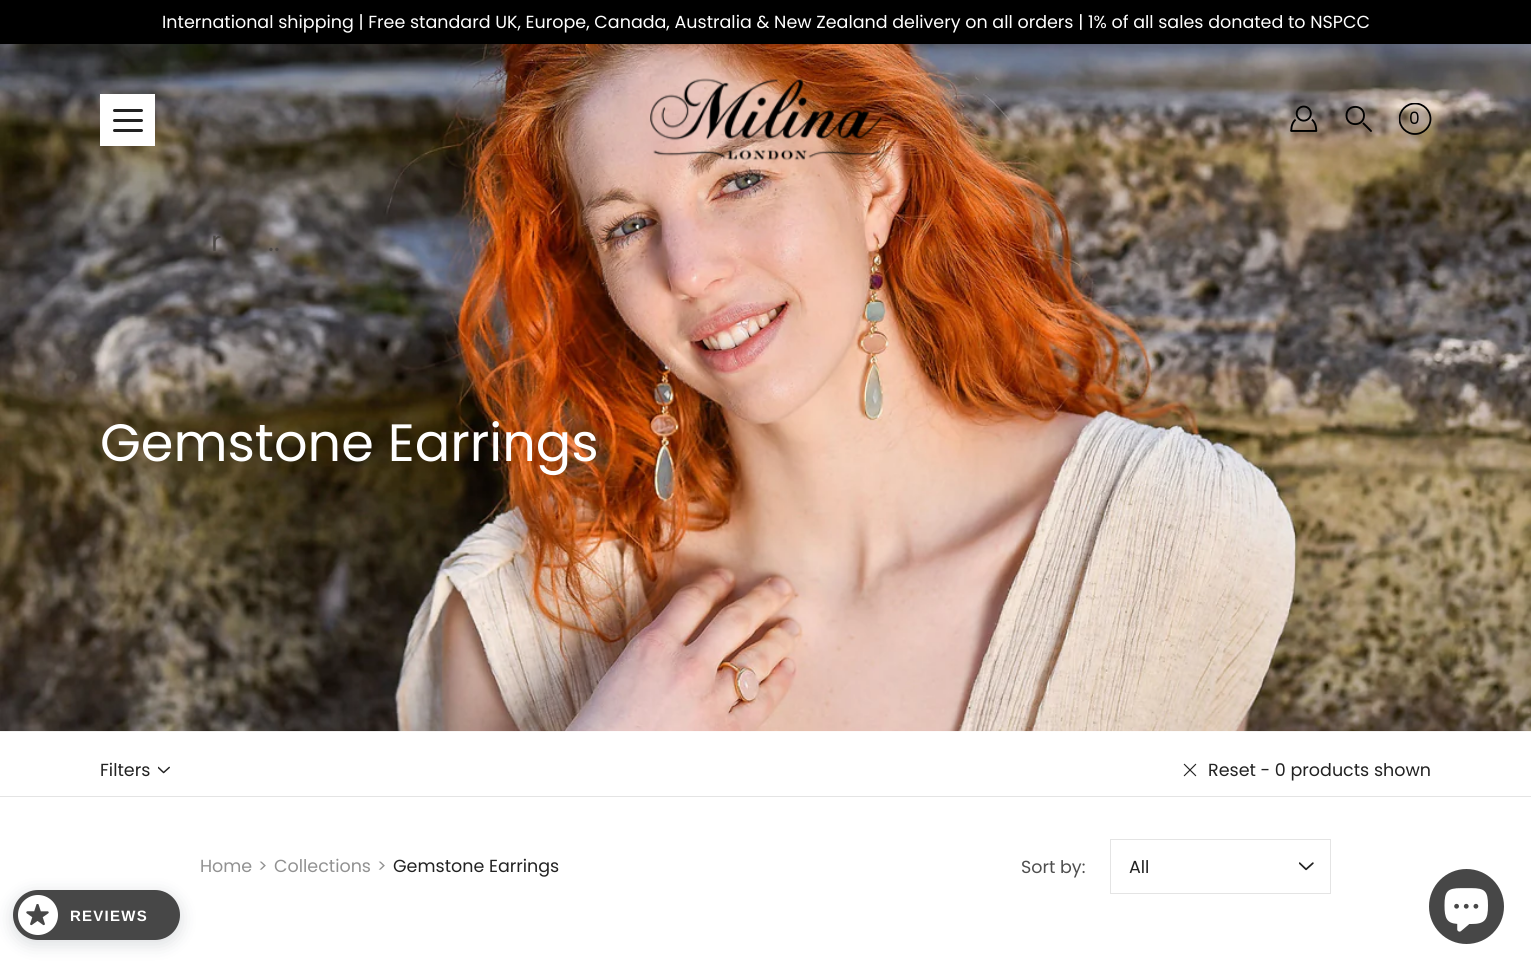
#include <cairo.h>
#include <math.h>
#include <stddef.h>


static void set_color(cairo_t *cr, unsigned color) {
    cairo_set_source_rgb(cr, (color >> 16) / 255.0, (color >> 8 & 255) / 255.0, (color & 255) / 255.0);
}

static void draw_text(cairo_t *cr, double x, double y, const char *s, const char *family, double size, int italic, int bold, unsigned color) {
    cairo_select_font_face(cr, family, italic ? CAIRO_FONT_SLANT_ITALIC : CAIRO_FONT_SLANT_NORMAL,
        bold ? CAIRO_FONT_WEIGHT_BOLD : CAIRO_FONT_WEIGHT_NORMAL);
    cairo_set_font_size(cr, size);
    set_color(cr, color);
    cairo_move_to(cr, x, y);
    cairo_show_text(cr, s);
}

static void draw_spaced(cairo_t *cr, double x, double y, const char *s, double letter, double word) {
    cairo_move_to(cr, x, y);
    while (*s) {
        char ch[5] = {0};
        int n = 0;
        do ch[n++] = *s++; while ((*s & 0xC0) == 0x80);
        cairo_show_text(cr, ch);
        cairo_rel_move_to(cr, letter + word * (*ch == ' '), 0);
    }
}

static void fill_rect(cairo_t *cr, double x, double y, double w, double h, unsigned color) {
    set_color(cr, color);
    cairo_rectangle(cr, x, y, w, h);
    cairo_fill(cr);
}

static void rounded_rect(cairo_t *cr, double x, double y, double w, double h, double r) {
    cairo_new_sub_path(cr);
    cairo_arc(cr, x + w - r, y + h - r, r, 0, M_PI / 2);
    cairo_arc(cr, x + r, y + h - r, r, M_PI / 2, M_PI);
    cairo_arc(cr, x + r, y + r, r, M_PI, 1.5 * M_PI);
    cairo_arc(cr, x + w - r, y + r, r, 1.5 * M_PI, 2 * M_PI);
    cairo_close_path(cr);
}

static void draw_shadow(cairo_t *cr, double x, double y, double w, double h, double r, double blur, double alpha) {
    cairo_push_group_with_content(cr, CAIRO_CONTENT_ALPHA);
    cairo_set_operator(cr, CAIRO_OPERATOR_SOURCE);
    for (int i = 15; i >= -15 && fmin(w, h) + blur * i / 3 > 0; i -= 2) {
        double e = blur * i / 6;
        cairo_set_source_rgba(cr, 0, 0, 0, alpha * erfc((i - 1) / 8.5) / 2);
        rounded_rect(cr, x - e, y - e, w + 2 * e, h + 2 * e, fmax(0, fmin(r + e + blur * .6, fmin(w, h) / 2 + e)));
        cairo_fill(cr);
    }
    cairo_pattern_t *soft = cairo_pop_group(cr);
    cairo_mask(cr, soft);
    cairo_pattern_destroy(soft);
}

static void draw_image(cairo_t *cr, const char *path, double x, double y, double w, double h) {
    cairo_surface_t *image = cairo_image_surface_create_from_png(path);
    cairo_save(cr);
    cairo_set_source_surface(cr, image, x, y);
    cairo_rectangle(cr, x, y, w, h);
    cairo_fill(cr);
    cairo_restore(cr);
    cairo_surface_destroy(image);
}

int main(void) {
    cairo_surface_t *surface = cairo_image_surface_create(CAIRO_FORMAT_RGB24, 1531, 969);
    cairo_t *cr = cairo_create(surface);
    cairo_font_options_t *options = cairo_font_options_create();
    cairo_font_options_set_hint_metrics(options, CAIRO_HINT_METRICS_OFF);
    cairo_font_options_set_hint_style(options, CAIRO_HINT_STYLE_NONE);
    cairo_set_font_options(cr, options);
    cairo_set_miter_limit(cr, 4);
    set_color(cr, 0xFFFFFF);
    cairo_paint(cr);
    fill_rect(cr, 0, 0, 1531, 44, 0x000000);
    draw_text(cr, 162, 28, "International shipping | Free standard UK, Europe, Canada, Australia & New Zealand delivery on all orders | 1% of all sales donated to NSPCC", "Poppins", 17.5, 0, 0, 0xFFFFFF);
    draw_image(cr, "assets/img3.png", 0, 44, 1531, 688);
    draw_image(cr, "assets/img1.png", 650, 78, 232, 83);
    fill_rect(cr, 100, 94, 55, 52, 0xFFFFFF);
    set_color(cr, 0x222222);
    rounded_rect(cr, 113, 119, 30, 3, 1.5);
    cairo_fill(cr);
    rounded_rect(cr, 113, 109, 30, 3, 1.5);
    cairo_fill(cr);
    rounded_rect(cr, 113, 129, 30, 3, 1.5);
    cairo_fill(cr);
    draw_image(cr, "assets/img2.png", 1290, 105, 28, 27);
    cairo_new_path(cr);
    cairo_move_to(cr, 1364, 115.5);
    cairo_curve_to(cr, 1364, 127, 1346.5, 127, 1346.5, 115.5);
    cairo_curve_to(cr, 1346.5, 104, 1364, 104, 1364, 115.5);
    cairo_close_path(cr);
    set_color(cr, 0x000000);
    cairo_set_line_width(cr, 1.9);
    cairo_stroke(cr);
    cairo_new_path(cr);
    cairo_move_to(cr, 1363.5, 123.5);
    cairo_line_to(cr, 1371, 131);
    cairo_set_line_cap(cr, CAIRO_LINE_CAP_ROUND);
    cairo_stroke(cr);
    cairo_save(cr);
    cairo_rectangle(cr, 1399, 103, 34, 33);
    cairo_clip(cr);
    cairo_new_path(cr);
    cairo_move_to(cr, 1430.5, 119);
    cairo_curve_to(cr, 1430.5, 127, 1423.5, 134, 1415, 134);
    cairo_curve_to(cr, 1406.5, 134, 1399.5, 127, 1399.5, 119);
    cairo_curve_to(cr, 1399.5, 110.5, 1406.5, 103.5, 1415, 103.5);
    cairo_curve_to(cr, 1423.5, 103.5, 1430.5, 110.5, 1430.5, 119);
    cairo_close_path(cr);
    cairo_set_line_width(cr, 1.8);
    cairo_set_line_cap(cr, CAIRO_LINE_CAP_BUTT);
    cairo_stroke(cr);
    cairo_restore(cr);
    draw_text(cr, 1409, 124, "0", "Poppins", 17, 0, 0, 0x000000);
    draw_text(cr, 211, 251, "r", "Poppins", 28, 0, 0, 0x4D4946);
    draw_text(cr, 268, 251, "..", "Poppins", 28, 0, 0, 0x4D4946);
    draw_text(cr, 100, 461, "Gemstone Earrings", "Poppins", 52.5, 0, 0, 0xFFFFFF);
    fill_rect(cr, 0, 796, 1531, 1, 0xE4E4E4);
    draw_text(cr, 100, 776, "Filters", "Poppins", 17.5, 0, 0, 0x222222);
    draw_image(cr, "assets/img4.png", 158, 766, 12, 8);
    draw_image(cr, "assets/img5.png", 1183, 763, 14, 14);
    draw_text(cr, 1208, 776, "Reset - 0 products shown", "Poppins", 17.5, 0, 0, 0x222222);
    draw_text(cr, 200, 872, "Home", "Poppins", 17.5, 0, 0, 0x919191);
    draw_text(cr, 258, 872, ">", "Poppins", 17.5, 0, 0, 0x919191);
    draw_text(cr, 274, 872, "Collections", "Poppins", 17.5, 0, 0, 0x919191);
    draw_text(cr, 377, 872, ">", "Poppins", 17.5, 0, 0, 0x919191);
    draw_text(cr, 393, 872, "Gemstone Earrings", "Poppins", 17.5, 0, 0, 0x222222);
    draw_text(cr, 1021, 873, "Sort by:", "Poppins", 17.5, 0, 0, 0x4E4E4E);
    cairo_rectangle(cr, 1110.5, 839.5, 220, 54);
    set_color(cr, 0xE4E4E4);
    cairo_set_line_width(cr, 1);
    cairo_set_line_cap(cr, CAIRO_LINE_CAP_BUTT);
    cairo_stroke(cr);
    draw_text(cr, 1129, 873, "All", "Poppins", 17.5, 0, 0, 0x222222);
    draw_image(cr, "assets/img6.png", 1299, 862, 15, 9);
    set_color(cr, 0x112233);
    draw_shadow(cr, 13, 894, 167, 50, 25, 9, 0.16);
    set_color(cr, 0x474747);
    rounded_rect(cr, 13, 890, 167, 50, 25);
    cairo_fill(cr);
    set_color(cr, 0xFFFFFF);
    cairo_arc(cr, 38, 915, 20, 0, 2 * M_PI);
    cairo_fill(cr);
    draw_image(cr, "assets/img7.png", 26, 904, 23, 22);
    cairo_select_font_face(cr, "Liberation Sans", CAIRO_FONT_SLANT_NORMAL, CAIRO_FONT_WEIGHT_BOLD);
    cairo_set_font_size(cr, 15);
    draw_spaced(cr, 70, 921, "REVIEWS", 1.25, 0);
    set_color(cr, 0x474747);
    cairo_new_path(cr);
    cairo_arc(cr, 1466.5, 906.5, 37.5, 0, 2 * M_PI);
    cairo_fill(cr);
    draw_image(cr, "assets/img8.png", 1444, 888, 44, 44);
    cairo_surface_write_to_png(surface, "output.png");
    cairo_font_options_destroy(options);
    cairo_destroy(cr);
    cairo_surface_destroy(surface);
    return 0;
}
